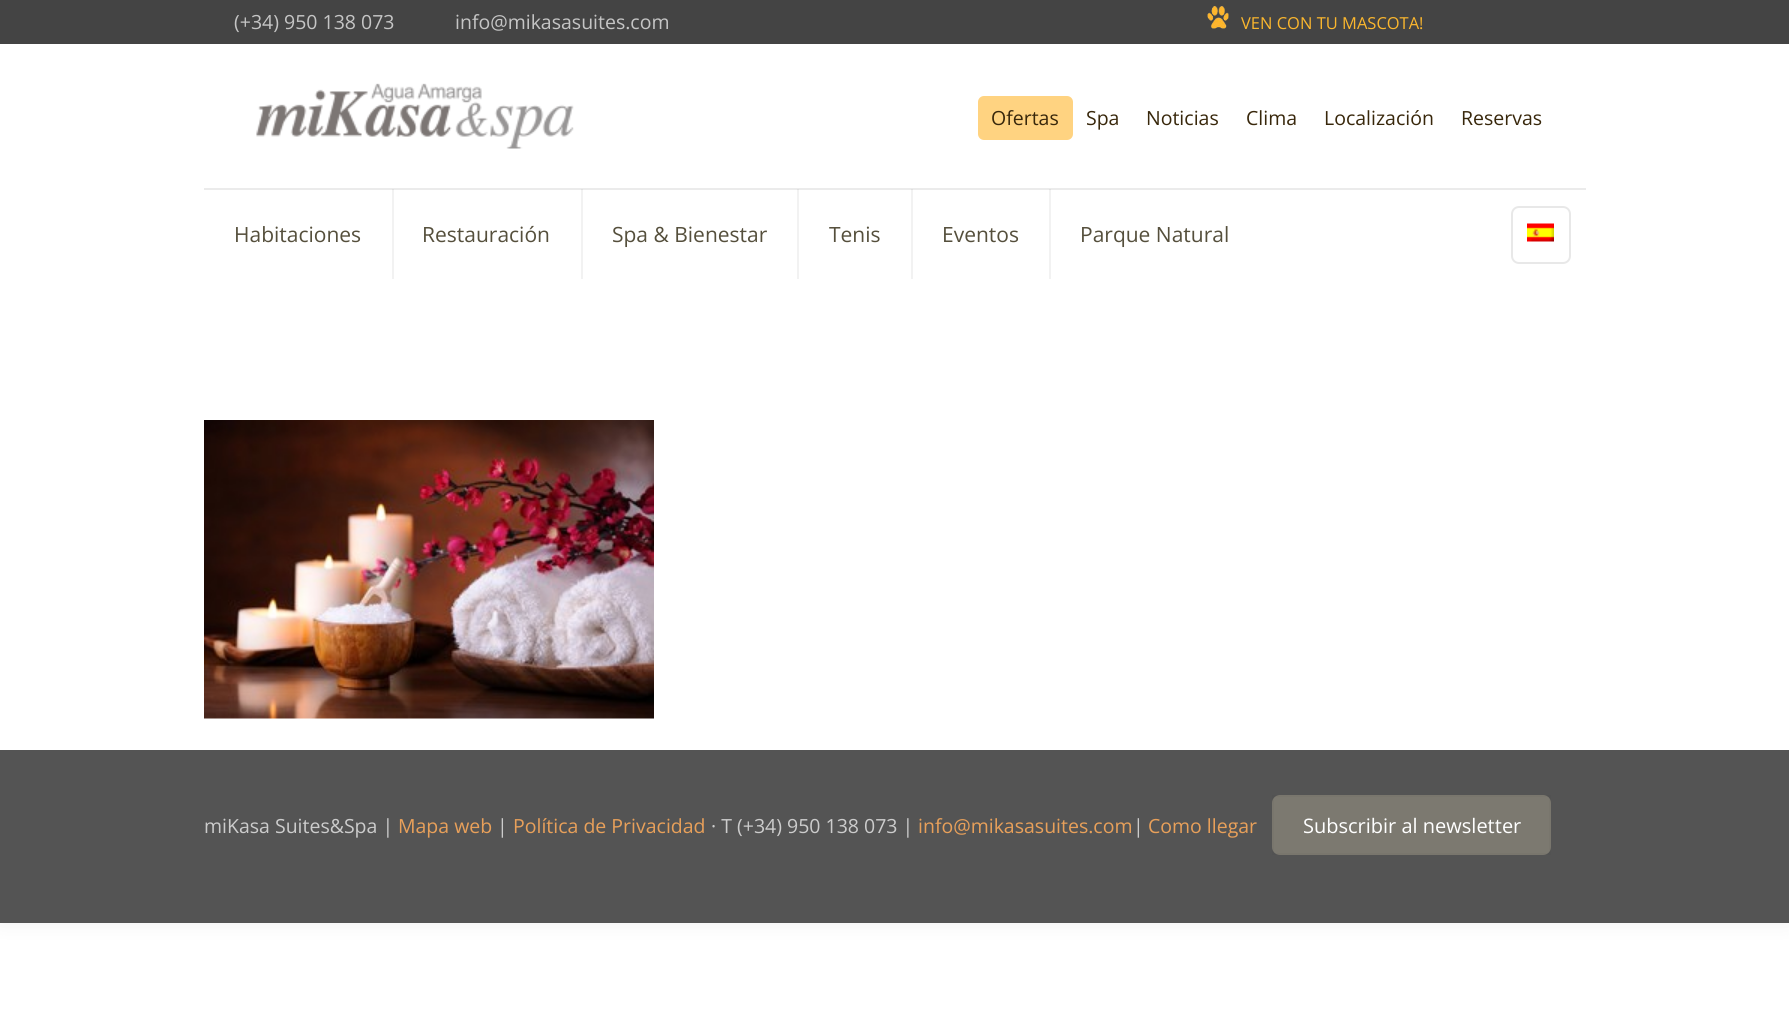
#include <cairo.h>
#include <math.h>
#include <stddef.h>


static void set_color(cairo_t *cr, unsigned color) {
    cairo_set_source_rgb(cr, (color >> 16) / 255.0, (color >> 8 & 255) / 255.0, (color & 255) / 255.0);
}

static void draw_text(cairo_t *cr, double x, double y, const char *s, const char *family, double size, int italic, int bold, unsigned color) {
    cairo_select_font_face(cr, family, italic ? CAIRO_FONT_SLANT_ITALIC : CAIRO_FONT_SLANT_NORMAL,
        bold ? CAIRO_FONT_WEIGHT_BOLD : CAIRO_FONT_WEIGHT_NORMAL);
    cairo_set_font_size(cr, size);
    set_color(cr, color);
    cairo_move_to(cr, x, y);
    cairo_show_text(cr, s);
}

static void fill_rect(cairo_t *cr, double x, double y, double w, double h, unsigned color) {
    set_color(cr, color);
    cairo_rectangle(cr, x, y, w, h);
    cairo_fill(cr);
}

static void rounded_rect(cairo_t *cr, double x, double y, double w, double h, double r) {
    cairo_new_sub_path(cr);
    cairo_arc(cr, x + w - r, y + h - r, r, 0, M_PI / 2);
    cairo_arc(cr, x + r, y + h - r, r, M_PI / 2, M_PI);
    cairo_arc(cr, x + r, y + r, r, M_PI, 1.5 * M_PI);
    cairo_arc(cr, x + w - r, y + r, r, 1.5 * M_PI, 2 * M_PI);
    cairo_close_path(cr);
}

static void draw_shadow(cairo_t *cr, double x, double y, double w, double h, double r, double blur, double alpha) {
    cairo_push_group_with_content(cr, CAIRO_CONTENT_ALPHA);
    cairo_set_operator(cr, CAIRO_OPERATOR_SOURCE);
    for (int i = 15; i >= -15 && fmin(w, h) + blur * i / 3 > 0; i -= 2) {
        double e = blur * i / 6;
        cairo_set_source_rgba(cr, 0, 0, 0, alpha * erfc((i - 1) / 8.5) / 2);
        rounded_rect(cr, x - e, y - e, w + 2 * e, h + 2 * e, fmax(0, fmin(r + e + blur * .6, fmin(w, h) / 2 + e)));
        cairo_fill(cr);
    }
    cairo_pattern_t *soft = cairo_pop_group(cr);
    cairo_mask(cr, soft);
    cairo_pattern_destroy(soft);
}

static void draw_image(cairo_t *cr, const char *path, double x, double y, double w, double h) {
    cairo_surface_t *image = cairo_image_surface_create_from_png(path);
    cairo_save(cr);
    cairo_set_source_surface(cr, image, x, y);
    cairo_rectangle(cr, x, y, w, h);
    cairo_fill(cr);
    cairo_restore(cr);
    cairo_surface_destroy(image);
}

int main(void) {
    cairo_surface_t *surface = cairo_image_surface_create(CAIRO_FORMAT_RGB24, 1789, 1026);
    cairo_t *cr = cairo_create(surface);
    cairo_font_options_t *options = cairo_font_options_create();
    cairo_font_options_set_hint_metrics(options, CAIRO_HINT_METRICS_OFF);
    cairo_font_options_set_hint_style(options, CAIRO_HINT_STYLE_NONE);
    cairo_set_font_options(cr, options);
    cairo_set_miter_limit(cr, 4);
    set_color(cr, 0xFFFFFF);
    cairo_paint(cr);
    set_color(cr, 0x000000);
    draw_shadow(cr, 0, 0, 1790, 923, 0, 11, 0.06);
    fill_rect(cr, 0, 44, 1789, 706, 0xFFFFFF);
    fill_rect(cr, 1049, 189, 2, 90, 0xF2F2F2);
    fill_rect(cr, 911, 189, 2, 90, 0xF2F2F2);
    fill_rect(cr, 797, 189, 2, 90, 0xF2F2F2);
    fill_rect(cr, 581, 189, 2, 90, 0xF2F2F2);
    fill_rect(cr, 392, 189, 2, 90, 0xF2F2F2);
    fill_rect(cr, 0, 0, 1789, 44, 0x444444);
    draw_text(cr, 234, 29, "(+34) 950 138 073", "Open Sans", 19.5, 0, 0, 0xC5C5C5);
    draw_text(cr, 455, 29, "info@mikasasuites.com", "Open Sans", 19.5, 0, 0, 0xC5C5C5);
    draw_image(cr, "assets/img1.png", 1207, 6, 22, 23);
    draw_text(cr, 1241, 29, "VEN CON TU MASCOTA!", "Open Sans", 16.5, 0, 0, 0xFCB72D);
    fill_rect(cr, 204, 188, 1382, 2, 0xEBEBEB);
    fill_rect(cr, 1049, 189, 2, 1, 0xDFDFDF);
    fill_rect(cr, 911, 189, 2, 1, 0xDFDFDF);
    fill_rect(cr, 797, 189, 2, 1, 0xDFDFDF);
    fill_rect(cr, 581, 189, 2, 1, 0xDFDFDF);
    fill_rect(cr, 392, 189, 2, 1, 0xDFDFDF);
    draw_image(cr, "assets/img2.png", 256, 83, 318, 66);
    set_color(cr, 0xFFD381);
    rounded_rect(cr, 978, 96, 95, 44, 6);
    cairo_fill(cr);
    draw_text(cr, 991, 125, "Ofertas", "Open Sans", 19.5, 0, 0, 0x38270B);
    draw_text(cr, 1086, 125, "Spa", "Open Sans", 19.5, 0, 0, 0x38270B);
    draw_text(cr, 1146, 125, "Noticias", "Open Sans", 19.5, 0, 0, 0x38270B);
    draw_text(cr, 1246, 125, "Clima", "Open Sans", 19.5, 0, 0, 0x38270B);
    draw_text(cr, 1324, 125, "Localización", "Open Sans", 19.5, 0, 0, 0x38270B);
    draw_text(cr, 1461, 125, "Reservas", "Open Sans", 19.5, 0, 0, 0x38270B);
    draw_text(cr, 234, 242, "Habitaciones", "Open Sans", 21, 0, 0, 0x554F3C);
    draw_text(cr, 422, 242, "Restauración", "Open Sans", 21, 0, 0, 0x554F3C);
    draw_text(cr, 612, 242, "Spa & Bienestar", "Open Sans", 21, 0, 0, 0x554F3C);
    draw_text(cr, 829, 242, "Tenis", "Open Sans", 21, 0, 0, 0x554F3C);
    draw_text(cr, 942, 242, "Eventos", "Open Sans", 21, 0, 0, 0x554F3C);
    draw_text(cr, 1080, 242, "Parque Natural", "Open Sans", 21, 0, 0, 0x554F3C);
    rounded_rect(cr, 1512, 207, 58, 56, 7);
    set_color(cr, 0xE8E8E8);
    cairo_stroke(cr);
    draw_image(cr, "assets/img3.png", 1527, 223, 27, 19);
    draw_image(cr, "assets/img4.png", 204, 420, 450, 299);
    fill_rect(cr, 0, 750, 1789, 173, 0x545454);
    draw_text(cr, 204, 833, "miKasa Suites&Spa |", "Open Sans", 19.5, 0, 0, 0xCCCCCC);
    draw_text(cr, 398, 833, "Mapa web", "Open Sans", 19.5, 0, 0, 0xE8A05A);
    draw_text(cr, 497, 833, "|", "Open Sans", 19.5, 0, 0, 0xCCCCCC);
    draw_text(cr, 513, 833, "Política de Privacidad", "Open Sans", 19.5, 0, 0, 0xE8A05A);
    draw_text(cr, 711, 833, "· T (+34) 950 138 073 |", "Open Sans", 19.5, 0, 0, 0xCCCCCC);
    draw_text(cr, 918, 833, "info@mikasasuites.com", "Open Sans", 19.5, 0, 0, 0xE8A05A);
    draw_text(cr, 1133, 833, "|", "Open Sans", 19.5, 0, 0, 0xCCCCCC);
    draw_text(cr, 1148, 833, "Como llegar", "Open Sans", 19.5, 0, 0, 0xE8A05A);
    set_color(cr, 0x7C7970);
    rounded_rect(cr, 1272, 795, 279, 60, 8);
    cairo_fill(cr);
    cairo_rectangle(cr, 1273, 796, 277, 58);
    cairo_set_source_rgba(cr, 0, 0, 0, 0.03);
    cairo_stroke(cr);
    draw_text(cr, 1303, 833, "Subscribir al newsletter", "Open Sans", 20, 0, 0, 0xFFFFFF);
    cairo_surface_write_to_png(surface, "output.png");
    cairo_font_options_destroy(options);
    cairo_destroy(cr);
    cairo_surface_destroy(surface);
    return 0;
}
